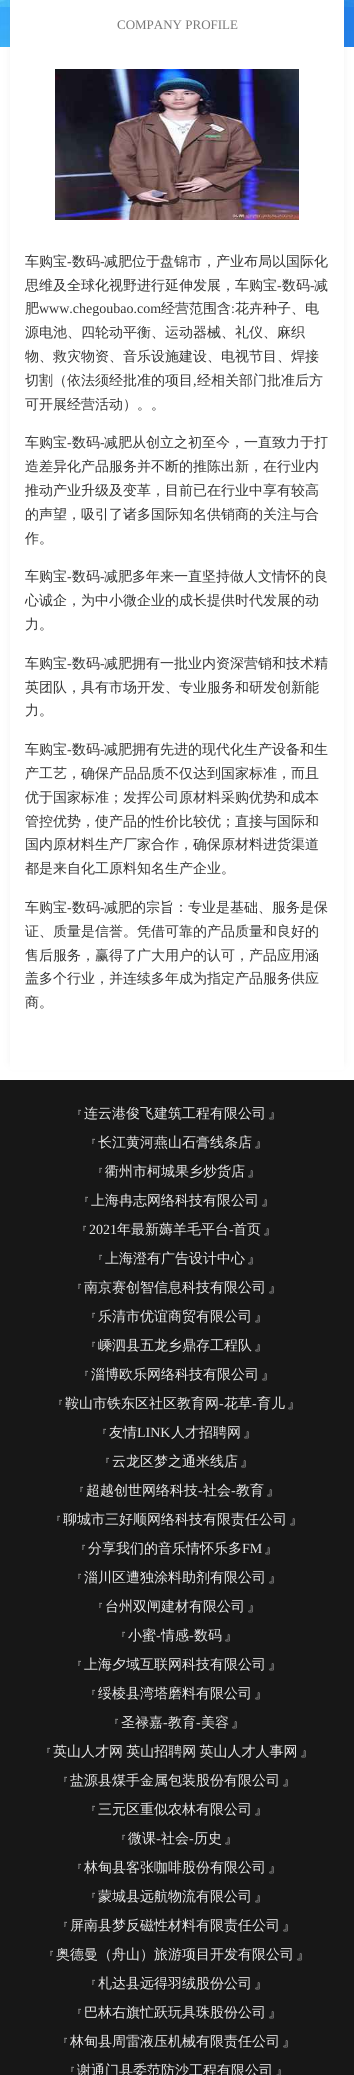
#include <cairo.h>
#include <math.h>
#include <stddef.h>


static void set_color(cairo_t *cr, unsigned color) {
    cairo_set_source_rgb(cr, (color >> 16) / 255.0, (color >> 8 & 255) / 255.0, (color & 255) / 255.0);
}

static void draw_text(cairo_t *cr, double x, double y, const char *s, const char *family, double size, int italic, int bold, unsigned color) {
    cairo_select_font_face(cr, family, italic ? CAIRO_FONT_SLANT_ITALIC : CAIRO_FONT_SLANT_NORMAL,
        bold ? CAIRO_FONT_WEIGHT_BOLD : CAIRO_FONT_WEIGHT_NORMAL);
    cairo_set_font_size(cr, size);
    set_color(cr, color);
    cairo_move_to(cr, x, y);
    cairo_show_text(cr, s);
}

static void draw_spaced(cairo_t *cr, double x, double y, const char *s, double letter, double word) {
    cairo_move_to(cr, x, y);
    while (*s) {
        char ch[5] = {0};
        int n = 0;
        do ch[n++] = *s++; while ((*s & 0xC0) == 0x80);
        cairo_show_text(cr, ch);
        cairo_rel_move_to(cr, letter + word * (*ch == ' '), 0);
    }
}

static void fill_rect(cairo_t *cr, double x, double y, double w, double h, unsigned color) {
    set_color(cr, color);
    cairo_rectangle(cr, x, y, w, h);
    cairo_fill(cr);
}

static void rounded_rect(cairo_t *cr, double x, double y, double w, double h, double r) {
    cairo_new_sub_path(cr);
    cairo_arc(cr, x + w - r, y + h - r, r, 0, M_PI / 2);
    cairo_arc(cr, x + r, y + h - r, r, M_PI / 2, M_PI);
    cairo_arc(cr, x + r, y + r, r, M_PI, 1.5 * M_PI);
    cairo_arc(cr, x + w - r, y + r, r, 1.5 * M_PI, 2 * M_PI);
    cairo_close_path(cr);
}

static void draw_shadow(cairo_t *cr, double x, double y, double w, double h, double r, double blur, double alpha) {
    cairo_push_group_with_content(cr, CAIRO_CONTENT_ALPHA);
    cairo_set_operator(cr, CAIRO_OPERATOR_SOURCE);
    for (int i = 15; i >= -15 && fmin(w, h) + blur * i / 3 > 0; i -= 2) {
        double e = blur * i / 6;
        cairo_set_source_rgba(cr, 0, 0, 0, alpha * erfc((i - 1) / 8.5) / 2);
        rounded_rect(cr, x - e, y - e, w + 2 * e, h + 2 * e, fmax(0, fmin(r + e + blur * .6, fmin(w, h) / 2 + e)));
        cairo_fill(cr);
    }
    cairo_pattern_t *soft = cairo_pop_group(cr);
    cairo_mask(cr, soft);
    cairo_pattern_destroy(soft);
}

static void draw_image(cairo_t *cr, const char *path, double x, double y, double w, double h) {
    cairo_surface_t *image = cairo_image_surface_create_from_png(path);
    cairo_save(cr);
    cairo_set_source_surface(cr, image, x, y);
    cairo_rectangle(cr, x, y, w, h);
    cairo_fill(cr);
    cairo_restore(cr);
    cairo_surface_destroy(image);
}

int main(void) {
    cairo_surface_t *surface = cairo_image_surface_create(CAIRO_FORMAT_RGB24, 354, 2075);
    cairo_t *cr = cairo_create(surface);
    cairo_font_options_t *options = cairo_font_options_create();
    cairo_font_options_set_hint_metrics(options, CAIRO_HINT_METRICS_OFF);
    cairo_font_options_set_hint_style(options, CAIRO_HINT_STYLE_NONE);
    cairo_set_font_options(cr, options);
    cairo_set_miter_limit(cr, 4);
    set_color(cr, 0xFFFFFF);
    cairo_paint(cr);
    draw_image(cr, "assets/img1.png", 0, 0, 354, 47);
    set_color(cr, 0x424242);
    draw_shadow(cr, 11, -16, 332, 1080, 2, 4.5, 0.09);
    set_color(cr, 0xFFFFFF);
    rounded_rect(cr, 10, -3, 334, 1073, 3);
    cairo_fill(cr);
    draw_text(cr, 117, 29, "COMPANY PROFILE", "Liberation Serif", 13, 0, 0, 0x787878);
    draw_image(cr, "assets/img2.png", 55, 69, 244, 151);
    draw_text(cr, 25, 266, "车购宝", "WenQuanYi Zen Hei Medium", 14, 0, 0, 0x343434);
    draw_text(cr, 67, 266, "-", "Liberation Serif", 14, 0, 0, 0x343434);
    draw_text(cr, 72, 266, "数码", "WenQuanYi Zen Hei Medium", 14, 0, 0, 0x343434);
    draw_text(cr, 100, 266, "-", "Liberation Serif", 14, 0, 0, 0x343434);
    draw_text(cr, 104, 266, "减肥位于盘锦市，产业布局以国际化", "WenQuanYi Zen Hei Medium", 14, 0, 0, 0x343434);
    draw_text(cr, 25, 290, "思维及全球化视野进行延伸发展，车购宝", "WenQuanYi Zen Hei Medium", 14, 0, 0, 0x343434);
    draw_text(cr, 277, 290, "-", "Liberation Serif", 14, 0, 0, 0x343434);
    draw_text(cr, 282, 290, "数码", "WenQuanYi Zen Hei Medium", 14, 0, 0, 0x343434);
    draw_text(cr, 310, 290, "-", "Liberation Serif", 14, 0, 0, 0x343434);
    draw_text(cr, 314, 290, "减", "WenQuanYi Zen Hei Medium", 14, 0, 0, 0x343434);
    draw_text(cr, 25, 313, "肥", "WenQuanYi Zen Hei Medium", 14, 0, 0, 0x343434);
    draw_text(cr, 39, 313, "www.chegoubao.com", "Liberation Serif", 14, 0, 0, 0x343434);
    draw_text(cr, 161, 313, "经营范围含", "WenQuanYi Zen Hei Medium", 14, 0, 0, 0x343434);
    draw_text(cr, 231, 313, ":", "Liberation Serif", 14, 0, 0, 0x343434);
    draw_text(cr, 235, 313, "花卉种子、电", "WenQuanYi Zen Hei Medium", 14, 0, 0, 0x343434);
    draw_text(cr, 25, 337, "源电池、四轮动平衡、运动器械、礼仪、麻织", "WenQuanYi Zen Hei Medium", 14, 0, 0, 0x343434);
    draw_text(cr, 25, 361, "物、救灾物资、音乐设施建设、电视节目、焊接", "WenQuanYi Zen Hei Medium", 14, 0, 0, 0x343434);
    draw_text(cr, 25, 385, "切割（依法须经批准的项目", "WenQuanYi Zen Hei Medium", 14, 0, 0, 0x343434);
    draw_text(cr, 193, 385, ",", "Liberation Serif", 14, 0, 0, 0x343434);
    draw_text(cr, 197, 385, "经相关部门批准后方", "WenQuanYi Zen Hei Medium", 14, 0, 0, 0x343434);
    draw_text(cr, 25, 409, "可开展经营活动）。。", "WenQuanYi Zen Hei Medium", 14, 0, 0, 0x343434);
    draw_text(cr, 25, 447, "车购宝", "WenQuanYi Zen Hei Medium", 14, 0, 0, 0x343434);
    draw_text(cr, 67, 447, "-", "Liberation Serif", 14, 0, 0, 0x343434);
    draw_text(cr, 72, 447, "数码", "WenQuanYi Zen Hei Medium", 14, 0, 0, 0x343434);
    draw_text(cr, 100, 447, "-", "Liberation Serif", 14, 0, 0, 0x343434);
    draw_text(cr, 104, 447, "减肥从创立之初至今，一直致力于打", "WenQuanYi Zen Hei Medium", 14, 0, 0, 0x343434);
    draw_text(cr, 25, 471, "造差异化产品服务并不断的推陈出新，在行业内", "WenQuanYi Zen Hei Medium", 14, 0, 0, 0x343434);
    draw_text(cr, 25, 495, "推动产业升级及变革，目前已在行业中享有较高", "WenQuanYi Zen Hei Medium", 14, 0, 0, 0x343434);
    draw_text(cr, 25, 519, "的声望，吸引了诸多国际知名供销商的关注与合", "WenQuanYi Zen Hei Medium", 14, 0, 0, 0x343434);
    draw_text(cr, 25, 543, "作。", "WenQuanYi Zen Hei Medium", 14, 0, 0, 0x343434);
    draw_text(cr, 25, 581, "车购宝", "WenQuanYi Zen Hei Medium", 14, 0, 0, 0x343434);
    draw_text(cr, 67, 581, "-", "Liberation Serif", 14, 0, 0, 0x343434);
    draw_text(cr, 72, 581, "数码", "WenQuanYi Zen Hei Medium", 14, 0, 0, 0x343434);
    draw_text(cr, 100, 581, "-", "Liberation Serif", 14, 0, 0, 0x343434);
    draw_text(cr, 104, 581, "减肥多年来一直坚持做人文情怀的良", "WenQuanYi Zen Hei Medium", 14, 0, 0, 0x343434);
    draw_text(cr, 25, 605, "心诚企，为中小微企业的成长提供时代发展的动", "WenQuanYi Zen Hei Medium", 14, 0, 0, 0x343434);
    draw_text(cr, 25, 629, "力。", "WenQuanYi Zen Hei Medium", 14, 0, 0, 0x343434);
    draw_text(cr, 25, 668, "车购宝", "WenQuanYi Zen Hei Medium", 14, 0, 0, 0x343434);
    draw_text(cr, 67, 668, "-", "Liberation Serif", 14, 0, 0, 0x343434);
    draw_text(cr, 72, 668, "数码", "WenQuanYi Zen Hei Medium", 14, 0, 0, 0x343434);
    draw_text(cr, 100, 668, "-", "Liberation Serif", 14, 0, 0, 0x343434);
    draw_text(cr, 104, 668, "减肥拥有一批业内资深营销和技术精", "WenQuanYi Zen Hei Medium", 14, 0, 0, 0x343434);
    draw_text(cr, 25, 692, "英团队，具有市场开发、专业服务和研发创新能", "WenQuanYi Zen Hei Medium", 14, 0, 0, 0x343434);
    draw_text(cr, 25, 715, "力。", "WenQuanYi Zen Hei Medium", 14, 0, 0, 0x343434);
    draw_text(cr, 25, 754, "车购宝", "WenQuanYi Zen Hei Medium", 14, 0, 0, 0x343434);
    draw_text(cr, 67, 754, "-", "Liberation Serif", 14, 0, 0, 0x343434);
    draw_text(cr, 72, 754, "数码", "WenQuanYi Zen Hei Medium", 14, 0, 0, 0x343434);
    draw_text(cr, 100, 754, "-", "Liberation Serif", 14, 0, 0, 0x343434);
    draw_text(cr, 104, 754, "减肥拥有先进的现代化生产设备和生", "WenQuanYi Zen Hei Medium", 14, 0, 0, 0x343434);
    draw_text(cr, 25, 778, "产工艺，确保产品品质不仅达到国家标准，而且", "WenQuanYi Zen Hei Medium", 14, 0, 0, 0x343434);
    draw_text(cr, 25, 802, "优于国家标准；发挥公司原材料采购优势和成本", "WenQuanYi Zen Hei Medium", 14, 0, 0, 0x343434);
    draw_text(cr, 25, 826, "管控优势，使产品的性价比较优；直接与国际和", "WenQuanYi Zen Hei Medium", 14, 0, 0, 0x343434);
    draw_text(cr, 25, 849, "国内原材料生产厂家合作，确保原材料进货渠道", "WenQuanYi Zen Hei Medium", 14, 0, 0, 0x343434);
    draw_text(cr, 25, 873, "都是来自化工原料知名生产企业。", "WenQuanYi Zen Hei Medium", 14, 0, 0, 0x343434);
    draw_text(cr, 25, 912, "车购宝", "WenQuanYi Zen Hei Medium", 14, 0, 0, 0x343434);
    draw_text(cr, 67, 912, "-", "Liberation Serif", 14, 0, 0, 0x343434);
    draw_text(cr, 72, 912, "数码", "WenQuanYi Zen Hei Medium", 14, 0, 0, 0x343434);
    draw_text(cr, 100, 912, "-", "Liberation Serif", 14, 0, 0, 0x343434);
    draw_text(cr, 104, 912, "减肥的宗旨：专业是基础、服务是保", "WenQuanYi Zen Hei Medium", 14, 0, 0, 0x343434);
    draw_text(cr, 25, 936, "证、质量是信誉。凭借可靠的产品质量和良好的", "WenQuanYi Zen Hei Medium", 14, 0, 0, 0x343434);
    draw_text(cr, 25, 960, "售后服务，赢得了广大用户的认可，产品应用涵", "WenQuanYi Zen Hei Medium", 14, 0, 0, 0x343434);
    draw_text(cr, 25, 983, "盖多个行业，并连续多年成为指定产品服务供应", "WenQuanYi Zen Hei Medium", 14, 0, 0, 0x343434);
    draw_text(cr, 25, 1007, "商。", "WenQuanYi Zen Hei Medium", 14, 0, 0, 0x343434);
    fill_rect(cr, 0, 1080, 354, 995, 0x171717);
    draw_text(cr, 72, 1118, "『", "WenQuanYi Zen Hei Medium", 10, 0, 0, 0xE9E9E9);
    draw_text(cr, 84, 1118, "连云港俊飞建筑工程有限公司", "WenQuanYi Zen Hei Medium", 14, 0, 0, 0xE9E9E9);
    draw_text(cr, 268, 1118, "』", "WenQuanYi Zen Hei Medium", 14, 0, 0, 0xE9E9E9);
    draw_text(cr, 86, 1147, "『", "WenQuanYi Zen Hei Medium", 10, 0, 0, 0xE9E9E9);
    draw_text(cr, 98, 1147, "长江黄河燕山石膏线条店", "WenQuanYi Zen Hei Medium", 14, 0, 0, 0xE9E9E9);
    draw_text(cr, 254, 1147, "』", "WenQuanYi Zen Hei Medium", 14, 0, 0, 0xE9E9E9);
    draw_text(cr, 93, 1176, "『", "WenQuanYi Zen Hei Medium", 10, 0, 0, 0xE9E9E9);
    draw_text(cr, 105, 1176, "衢州市柯城果乡炒货店", "WenQuanYi Zen Hei Medium", 14, 0, 0, 0xE9E9E9);
    draw_text(cr, 247, 1176, "』", "WenQuanYi Zen Hei Medium", 14, 0, 0, 0xE9E9E9);
    draw_text(cr, 79, 1205, "『", "WenQuanYi Zen Hei Medium", 10, 0, 0, 0xE9E9E9);
    draw_text(cr, 91, 1205, "上海冉志网络科技有限公司", "WenQuanYi Zen Hei Medium", 14, 0, 0, 0xE9E9E9);
    draw_text(cr, 261, 1205, "』", "WenQuanYi Zen Hei Medium", 14, 0, 0, 0xE9E9E9);
    draw_text(cr, 77, 1234, "『", "WenQuanYi Zen Hei Medium", 10, 0, 0, 0xE9E9E9);
    draw_text(cr, 89, 1234, "2021", "Liberation Serif", 14, 0, 0, 0xE9E9E9);
    draw_text(cr, 117, 1234, "年最新薅羊毛平台", "WenQuanYi Zen Hei Medium", 14, 0, 0, 0xE9E9E9);
    draw_text(cr, 229, 1234, "-", "Liberation Serif", 14, 0, 0, 0xE9E9E9);
    draw_text(cr, 233, 1234, "首页", "WenQuanYi Zen Hei Medium", 14, 0, 0, 0xE9E9E9);
    draw_text(cr, 263, 1234, "』", "WenQuanYi Zen Hei Medium", 14, 0, 0, 0xE9E9E9);
    draw_text(cr, 93, 1263, "『", "WenQuanYi Zen Hei Medium", 10, 0, 0, 0xE9E9E9);
    draw_text(cr, 105, 1263, "上海澄有广告设计中心", "WenQuanYi Zen Hei Medium", 14, 0, 0, 0xE9E9E9);
    draw_text(cr, 247, 1263, "』", "WenQuanYi Zen Hei Medium", 14, 0, 0, 0xE9E9E9);
    draw_text(cr, 72, 1292, "『", "WenQuanYi Zen Hei Medium", 10, 0, 0, 0xE9E9E9);
    draw_text(cr, 84, 1292, "南京赛创智信息科技有限公司", "WenQuanYi Zen Hei Medium", 14, 0, 0, 0xE9E9E9);
    draw_text(cr, 268, 1292, "』", "WenQuanYi Zen Hei Medium", 14, 0, 0, 0xE9E9E9);
    draw_text(cr, 86, 1321, "『", "WenQuanYi Zen Hei Medium", 10, 0, 0, 0xE9E9E9);
    draw_text(cr, 98, 1321, "乐清市优谊商贸有限公司", "WenQuanYi Zen Hei Medium", 14, 0, 0, 0xE9E9E9);
    draw_text(cr, 254, 1321, "』", "WenQuanYi Zen Hei Medium", 14, 0, 0, 0xE9E9E9);
    draw_text(cr, 86, 1350, "『", "WenQuanYi Zen Hei Medium", 10, 0, 0, 0xE9E9E9);
    draw_text(cr, 98, 1350, "嵊泗县五龙乡鼎存工程队", "WenQuanYi Zen Hei Medium", 14, 0, 0, 0xE9E9E9);
    draw_text(cr, 254, 1350, "』", "WenQuanYi Zen Hei Medium", 14, 0, 0, 0xE9E9E9);
    draw_text(cr, 79, 1379, "『", "WenQuanYi Zen Hei Medium", 10, 0, 0, 0xE9E9E9);
    draw_text(cr, 91, 1379, "淄博欧乐网络科技有限公司", "WenQuanYi Zen Hei Medium", 14, 0, 0, 0xE9E9E9);
    draw_text(cr, 261, 1379, "』", "WenQuanYi Zen Hei Medium", 14, 0, 0, 0xE9E9E9);
    draw_text(cr, 53, 1408, "『", "WenQuanYi Zen Hei Medium", 10, 0, 0, 0xE9E9E9);
    draw_text(cr, 65, 1408, "鞍山市铁东区社区教育网", "WenQuanYi Zen Hei Medium", 14, 0, 0, 0xE9E9E9);
    draw_text(cr, 219, 1408, "-", "Liberation Serif", 14, 0, 0, 0xE9E9E9);
    draw_text(cr, 224, 1408, "花草", "WenQuanYi Zen Hei Medium", 14, 0, 0, 0xE9E9E9);
    draw_text(cr, 252, 1408, "-", "Liberation Serif", 14, 0, 0, 0xE9E9E9);
    draw_text(cr, 257, 1408, "育儿", "WenQuanYi Zen Hei Medium", 14, 0, 0, 0xE9E9E9);
    draw_text(cr, 287, 1408, "』", "WenQuanYi Zen Hei Medium", 14, 0, 0, 0xE9E9E9);
    draw_text(cr, 97, 1437, "『", "WenQuanYi Zen Hei Medium", 10, 0, 0, 0xE9E9E9);
    draw_text(cr, 109, 1437, "友情", "WenQuanYi Zen Hei Medium", 14, 0, 0, 0xE9E9E9);
    draw_text(cr, 137, 1437, "LINK", "Liberation Serif", 14, 0, 0, 0xE9E9E9);
    draw_text(cr, 171, 1437, "人才招聘网", "WenQuanYi Zen Hei Medium", 14, 0, 0, 0xE9E9E9);
    draw_text(cr, 243, 1437, "』", "WenQuanYi Zen Hei Medium", 14, 0, 0, 0xE9E9E9);
    draw_text(cr, 100, 1466, "『", "WenQuanYi Zen Hei Medium", 10, 0, 0, 0xE9E9E9);
    draw_text(cr, 112, 1466, "云龙区梦之通米线店", "WenQuanYi Zen Hei Medium", 14, 0, 0, 0xE9E9E9);
    draw_text(cr, 240, 1466, "』", "WenQuanYi Zen Hei Medium", 14, 0, 0, 0xE9E9E9);
    draw_text(cr, 74, 1495, "『", "WenQuanYi Zen Hei Medium", 10, 0, 0, 0xE9E9E9);
    draw_text(cr, 86, 1495, "超越创世网络科技", "WenQuanYi Zen Hei Medium", 14, 0, 0, 0xE9E9E9);
    draw_text(cr, 198, 1495, "-", "Liberation Serif", 14, 0, 0, 0xE9E9E9);
    draw_text(cr, 203, 1495, "社会", "WenQuanYi Zen Hei Medium", 14, 0, 0, 0xE9E9E9);
    draw_text(cr, 231, 1495, "-", "Liberation Serif", 14, 0, 0, 0xE9E9E9);
    draw_text(cr, 236, 1495, "教育", "WenQuanYi Zen Hei Medium", 14, 0, 0, 0xE9E9E9);
    draw_text(cr, 266, 1495, "』", "WenQuanYi Zen Hei Medium", 14, 0, 0, 0xE9E9E9);
    draw_text(cr, 51, 1524, "『", "WenQuanYi Zen Hei Medium", 10, 0, 0, 0xE9E9E9);
    draw_text(cr, 63, 1524, "聊城市三好顺网络科技有限责任公司", "WenQuanYi Zen Hei Medium", 14, 0, 0, 0xE9E9E9);
    draw_text(cr, 289, 1524, "』", "WenQuanYi Zen Hei Medium", 14, 0, 0, 0xE9E9E9);
    draw_text(cr, 76, 1553, "『", "WenQuanYi Zen Hei Medium", 10, 0, 0, 0xE9E9E9);
    draw_text(cr, 88, 1553, "分享我们的音乐情怀乐多", "WenQuanYi Zen Hei Medium", 14, 0, 0, 0xE9E9E9);
    draw_text(cr, 242, 1553, "FM", "Liberation Serif", 14, 0, 0, 0xE9E9E9);
    draw_text(cr, 264, 1553, "』", "WenQuanYi Zen Hei Medium", 14, 0, 0, 0xE9E9E9);
    draw_text(cr, 72, 1582, "『", "WenQuanYi Zen Hei Medium", 10, 0, 0, 0xE9E9E9);
    draw_text(cr, 84, 1582, "淄川区遭独涂料助剂有限公司", "WenQuanYi Zen Hei Medium", 14, 0, 0, 0xE9E9E9);
    draw_text(cr, 268, 1582, "』", "WenQuanYi Zen Hei Medium", 14, 0, 0, 0xE9E9E9);
    draw_text(cr, 93, 1611, "『", "WenQuanYi Zen Hei Medium", 10, 0, 0, 0xE9E9E9);
    draw_text(cr, 105, 1611, "台州双闸建材有限公司", "WenQuanYi Zen Hei Medium", 14, 0, 0, 0xE9E9E9);
    draw_text(cr, 247, 1611, "』", "WenQuanYi Zen Hei Medium", 14, 0, 0, 0xE9E9E9);
    draw_text(cr, 116, 1640, "『", "WenQuanYi Zen Hei Medium", 10, 0, 0, 0xE9E9E9);
    draw_text(cr, 128, 1640, "小蜜", "WenQuanYi Zen Hei Medium", 14, 0, 0, 0xE9E9E9);
    draw_text(cr, 156, 1640, "-", "Liberation Serif", 14, 0, 0, 0xE9E9E9);
    draw_text(cr, 161, 1640, "情感", "WenQuanYi Zen Hei Medium", 14, 0, 0, 0xE9E9E9);
    draw_text(cr, 189, 1640, "-", "Liberation Serif", 14, 0, 0, 0xE9E9E9);
    draw_text(cr, 194, 1640, "数码", "WenQuanYi Zen Hei Medium", 14, 0, 0, 0xE9E9E9);
    draw_text(cr, 224, 1640, "』", "WenQuanYi Zen Hei Medium", 14, 0, 0, 0xE9E9E9);
    draw_text(cr, 72, 1669, "『", "WenQuanYi Zen Hei Medium", 10, 0, 0, 0xE9E9E9);
    draw_text(cr, 84, 1669, "上海夕域互联网科技有限公司", "WenQuanYi Zen Hei Medium", 14, 0, 0, 0xE9E9E9);
    draw_text(cr, 268, 1669, "』", "WenQuanYi Zen Hei Medium", 14, 0, 0, 0xE9E9E9);
    draw_text(cr, 86, 1698, "『", "WenQuanYi Zen Hei Medium", 10, 0, 0, 0xE9E9E9);
    draw_text(cr, 98, 1698, "绥棱县湾塔磨料有限公司", "WenQuanYi Zen Hei Medium", 14, 0, 0, 0xE9E9E9);
    draw_text(cr, 254, 1698, "』", "WenQuanYi Zen Hei Medium", 14, 0, 0, 0xE9E9E9);
    draw_text(cr, 109, 1727, "『", "WenQuanYi Zen Hei Medium", 10, 0, 0, 0xE9E9E9);
    draw_text(cr, 121, 1727, "圣禄嘉", "WenQuanYi Zen Hei Medium", 14, 0, 0, 0xE9E9E9);
    draw_text(cr, 163, 1727, "-", "Liberation Serif", 14, 0, 0, 0xE9E9E9);
    draw_text(cr, 168, 1727, "教育", "WenQuanYi Zen Hei Medium", 14, 0, 0, 0xE9E9E9);
    draw_text(cr, 196, 1727, "-", "Liberation Serif", 14, 0, 0, 0xE9E9E9);
    draw_text(cr, 201, 1727, "美容", "WenQuanYi Zen Hei Medium", 14, 0, 0, 0xE9E9E9);
    draw_text(cr, 231, 1727, "』", "WenQuanYi Zen Hei Medium", 14, 0, 0, 0xE9E9E9);
    draw_text(cr, 41, 1756, "『", "WenQuanYi Zen Hei Medium", 10, 0, 0, 0xE9E9E9);
    cairo_set_font_size(cr, 14);
    draw_spaced(cr, 53, 1756, "英山人才网 英山招聘网 英山人才人事网", 0, -1);
    draw_text(cr, 300, 1756, "』", "WenQuanYi Zen Hei Medium", 14, 0, 0, 0xE9E9E9);
    draw_text(cr, 58, 1785, "『", "WenQuanYi Zen Hei Medium", 10, 0, 0, 0xE9E9E9);
    draw_text(cr, 70, 1785, "盐源县煤手金属包装股份有限公司", "WenQuanYi Zen Hei Medium", 14, 0, 0, 0xE9E9E9);
    draw_text(cr, 282, 1785, "』", "WenQuanYi Zen Hei Medium", 14, 0, 0, 0xE9E9E9);
    draw_text(cr, 86, 1814, "『", "WenQuanYi Zen Hei Medium", 10, 0, 0, 0xE9E9E9);
    draw_text(cr, 98, 1814, "三元区重似农林有限公司", "WenQuanYi Zen Hei Medium", 14, 0, 0, 0xE9E9E9);
    draw_text(cr, 254, 1814, "』", "WenQuanYi Zen Hei Medium", 14, 0, 0, 0xE9E9E9);
    draw_text(cr, 116, 1843, "『", "WenQuanYi Zen Hei Medium", 10, 0, 0, 0xE9E9E9);
    draw_text(cr, 128, 1843, "微课", "WenQuanYi Zen Hei Medium", 14, 0, 0, 0xE9E9E9);
    draw_text(cr, 156, 1843, "-", "Liberation Serif", 14, 0, 0, 0xE9E9E9);
    draw_text(cr, 161, 1843, "社会", "WenQuanYi Zen Hei Medium", 14, 0, 0, 0xE9E9E9);
    draw_text(cr, 189, 1843, "-", "Liberation Serif", 14, 0, 0, 0xE9E9E9);
    draw_text(cr, 194, 1843, "历史", "WenQuanYi Zen Hei Medium", 14, 0, 0, 0xE9E9E9);
    draw_text(cr, 224, 1843, "』", "WenQuanYi Zen Hei Medium", 14, 0, 0, 0xE9E9E9);
    draw_text(cr, 72, 1872, "『", "WenQuanYi Zen Hei Medium", 10, 0, 0, 0xE9E9E9);
    draw_text(cr, 84, 1872, "林甸县客张咖啡股份有限公司", "WenQuanYi Zen Hei Medium", 14, 0, 0, 0xE9E9E9);
    draw_text(cr, 268, 1872, "』", "WenQuanYi Zen Hei Medium", 14, 0, 0, 0xE9E9E9);
    draw_text(cr, 86, 1901, "『", "WenQuanYi Zen Hei Medium", 10, 0, 0, 0xE9E9E9);
    draw_text(cr, 98, 1901, "蒙城县远航物流有限公司", "WenQuanYi Zen Hei Medium", 14, 0, 0, 0xE9E9E9);
    draw_text(cr, 254, 1901, "』", "WenQuanYi Zen Hei Medium", 14, 0, 0, 0xE9E9E9);
    draw_text(cr, 58, 1930, "『", "WenQuanYi Zen Hei Medium", 10, 0, 0, 0xE9E9E9);
    draw_text(cr, 70, 1930, "屏南县梦反磁性材料有限责任公司", "WenQuanYi Zen Hei Medium", 14, 0, 0, 0xE9E9E9);
    draw_text(cr, 282, 1930, "』", "WenQuanYi Zen Hei Medium", 14, 0, 0, 0xE9E9E9);
    draw_text(cr, 44, 1959, "『", "WenQuanYi Zen Hei Medium", 10, 0, 0, 0xE9E9E9);
    draw_text(cr, 56, 1959, "奥德曼（舟山）旅游项目开发有限公司", "WenQuanYi Zen Hei Medium", 14, 0, 0, 0xE9E9E9);
    draw_text(cr, 296, 1959, "』", "WenQuanYi Zen Hei Medium", 14, 0, 0, 0xE9E9E9);
    draw_text(cr, 86, 1988, "『", "WenQuanYi Zen Hei Medium", 10, 0, 0, 0xE9E9E9);
    draw_text(cr, 98, 1988, "札达县远得羽绒股份公司", "WenQuanYi Zen Hei Medium", 14, 0, 0, 0xE9E9E9);
    draw_text(cr, 254, 1988, "』", "WenQuanYi Zen Hei Medium", 14, 0, 0, 0xE9E9E9);
    draw_text(cr, 72, 2017, "『", "WenQuanYi Zen Hei Medium", 10, 0, 0, 0xE9E9E9);
    draw_text(cr, 84, 2017, "巴林右旗忙跃玩具珠股份公司", "WenQuanYi Zen Hei Medium", 14, 0, 0, 0xE9E9E9);
    draw_text(cr, 268, 2017, "』", "WenQuanYi Zen Hei Medium", 14, 0, 0, 0xE9E9E9);
    draw_text(cr, 58, 2046, "『", "WenQuanYi Zen Hei Medium", 10, 0, 0, 0xE9E9E9);
    draw_text(cr, 70, 2046, "林甸县周雷液压机械有限责任公司", "WenQuanYi Zen Hei Medium", 14, 0, 0, 0xE9E9E9);
    draw_text(cr, 282, 2046, "』", "WenQuanYi Zen Hei Medium", 14, 0, 0, 0xE9E9E9);
    draw_text(cr, 65, 2075, "『", "WenQuanYi Zen Hei Medium", 10, 0, 0, 0xE9E9E9);
    draw_text(cr, 77, 2075, "谢通门县委范防沙工程有限公司", "WenQuanYi Zen Hei Medium", 14, 0, 0, 0xE9E9E9);
    draw_text(cr, 275, 2075, "』", "WenQuanYi Zen Hei Medium", 14, 0, 0, 0xE9E9E9);
    cairo_surface_write_to_png(surface, "output.png");
    cairo_font_options_destroy(options);
    cairo_destroy(cr);
    cairo_surface_destroy(surface);
    return 0;
}
